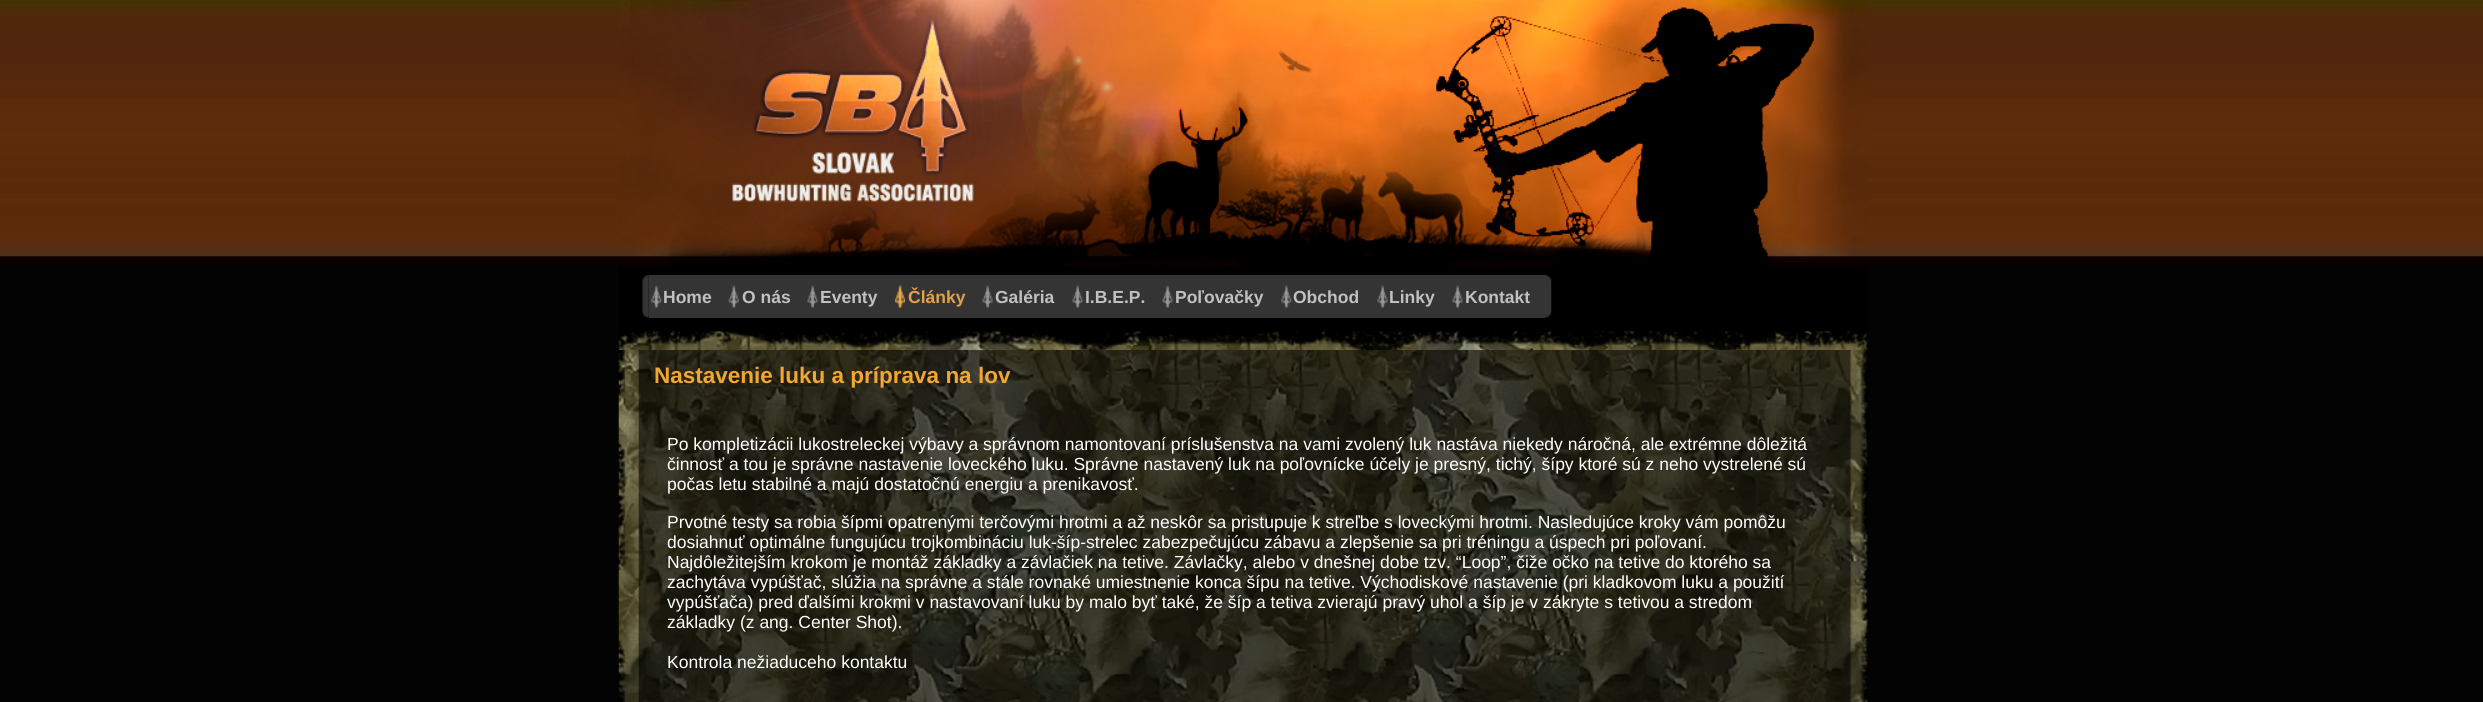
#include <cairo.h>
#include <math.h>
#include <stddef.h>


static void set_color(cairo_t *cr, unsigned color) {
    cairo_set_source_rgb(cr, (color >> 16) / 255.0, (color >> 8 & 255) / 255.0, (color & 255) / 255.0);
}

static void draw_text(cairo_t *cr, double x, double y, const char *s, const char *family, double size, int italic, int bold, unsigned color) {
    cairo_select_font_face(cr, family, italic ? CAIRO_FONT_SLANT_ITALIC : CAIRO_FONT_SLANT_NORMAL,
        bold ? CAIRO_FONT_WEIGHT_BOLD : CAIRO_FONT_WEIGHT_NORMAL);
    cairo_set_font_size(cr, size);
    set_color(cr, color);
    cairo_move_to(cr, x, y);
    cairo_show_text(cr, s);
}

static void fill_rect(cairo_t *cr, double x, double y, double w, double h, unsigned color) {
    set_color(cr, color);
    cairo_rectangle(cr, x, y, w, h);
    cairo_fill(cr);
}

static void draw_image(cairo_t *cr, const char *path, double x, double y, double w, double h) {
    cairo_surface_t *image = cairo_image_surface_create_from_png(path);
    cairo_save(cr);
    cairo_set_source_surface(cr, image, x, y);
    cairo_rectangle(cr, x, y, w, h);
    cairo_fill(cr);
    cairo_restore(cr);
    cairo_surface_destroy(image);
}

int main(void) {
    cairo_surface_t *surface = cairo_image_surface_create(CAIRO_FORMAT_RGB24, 2483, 702);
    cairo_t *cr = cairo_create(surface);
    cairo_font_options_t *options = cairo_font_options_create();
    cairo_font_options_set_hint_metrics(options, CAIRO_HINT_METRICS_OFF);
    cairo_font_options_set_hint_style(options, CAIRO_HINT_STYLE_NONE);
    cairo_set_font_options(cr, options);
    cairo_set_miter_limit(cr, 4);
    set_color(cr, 0x030303);
    cairo_paint(cr);
    draw_image(cr, "assets/img1.png", 0, 0, 2483, 265);
    draw_image(cr, "assets/img2.png", 618, 0, 1250, 350);
    draw_image(cr, "assets/img3.png", 642, 275, 7, 43);
    fill_rect(cr, 649, 275, 896, 43, 0x343434);
    draw_image(cr, "assets/img4.png", 651, 285, 11, 23);
    draw_text(cr, 663, 303, "Home", "Liberation Sans", 17.5, 0, 1, 0xC1C1C1);
    draw_image(cr, "assets/img5.png", 728, 285, 11, 23);
    draw_text(cr, 742, 303, "O nás", "Liberation Sans", 17.5, 0, 1, 0xC1C1C1);
    draw_image(cr, "assets/img6.png", 807, 285, 11, 23);
    draw_text(cr, 820, 303, "Eventy", "Liberation Sans", 17.5, 0, 1, 0xC1C1C1);
    draw_image(cr, "assets/img7.png", 895, 285, 10, 23);
    draw_text(cr, 908, 303, "Články", "Liberation Sans", 17.5, 0, 1, 0xE2A14A);
    draw_image(cr, "assets/img6.png", 982, 285, 11, 23);
    draw_text(cr, 995, 303, "Galéria", "Liberation Sans", 17.5, 0, 1, 0xC1C1C1);
    draw_image(cr, "assets/img6.png", 1072, 285, 11, 23);
    draw_text(cr, 1085, 303, "I.B.E.P.", "Liberation Sans", 17.5, 0, 1, 0xC1C1C1);
    draw_image(cr, "assets/img6.png", 1162, 285, 11, 23);
    draw_text(cr, 1175, 303, "Poľovačky", "Liberation Sans", 17.5, 0, 1, 0xC1C1C1);
    draw_image(cr, "assets/img4.png", 1281, 285, 11, 23);
    draw_text(cr, 1293, 303, "Obchod", "Liberation Sans", 17.5, 0, 1, 0xC1C1C1);
    draw_image(cr, "assets/img8.png", 1377, 285, 11, 23);
    draw_text(cr, 1389, 303, "Linky", "Liberation Sans", 17.5, 0, 1, 0xC1C1C1);
    draw_image(cr, "assets/img8.png", 1452, 285, 11, 23);
    draw_text(cr, 1465, 303, "Kontakt", "Liberation Sans", 17.5, 0, 1, 0xC1C1C1);
    draw_image(cr, "assets/img9.png", 1545, 275, 7, 43);
    draw_image(cr, "assets/img10.png", 618, 350, 1250, 352);
    draw_text(cr, 654, 383, "Nastavenie luku a príprava na lov", "Liberation Sans", 22.5, 0, 1, 0xF3A632);
    draw_text(cr, 667, 450, "Po kompletizácii lukostreleckej výbavy a správnom namontovaní príslušenstva na vami zvolený luk nastáva niekedy náročná, ale extrémne dôležitá", "Liberation Sans", 17.5, 0, 0, 0xFFFFFF);
    draw_text(cr, 667, 470, "činnosť a tou je správne nastavenie loveckého luku. Správne nastavený luk na poľovnícke účely je presný, tichý, šípy ktoré sú z neho vystrelené sú", "Liberation Sans", 17.5, 0, 0, 0xFFFFFF);
    draw_text(cr, 667, 490, "počas letu stabilné a majú dostatočnú energiu a prenikavosť.", "Liberation Sans", 17.5, 0, 0, 0xFFFFFF);
    draw_text(cr, 667, 528, "Prvotné testy sa robia šípmi opatrenými terčovými hrotmi a až neskôr sa pristupuje k streľbe s loveckými hrotmi. Nasledujúce kroky vám pomôžu", "Liberation Sans", 17.5, 0, 0, 0xFFFFFF);
    draw_text(cr, 667, 548, "dosiahnuť optimálne fungujúcu trojkombináciu luk-šíp-strelec zabezpečujúcu zábavu a zlepšenie sa pri tréningu a úspech pri poľovaní.", "Liberation Sans", 17.5, 0, 0, 0xFFFFFF);
    draw_text(cr, 667, 568, "Najdôležitejším krokom je montáž základky a závlačiek na tetive. Závlačky, alebo v dnešnej dobe tzv. “Loop”, čiže očko na tetive do ktorého sa", "Liberation Sans", 17.5, 0, 0, 0xFFFFFF);
    draw_text(cr, 667, 588, "zachytáva vypúšťač, slúžia na správne a stále rovnaké umiestnenie konca šípu na tetive. Východiskové nastavenie (pri kladkovom luku a použití", "Liberation Sans", 17.5, 0, 0, 0xFFFFFF);
    draw_text(cr, 667, 608, "vypúšťača) pred ďalšími krokmi v nastavovaní luku by malo byť také, že šíp a tetiva zvierajú pravý uhol a šíp je v zákryte s tetivou a stredom", "Liberation Sans", 17.5, 0, 0, 0xFFFFFF);
    draw_text(cr, 667, 628, "základky (z ang. Center Shot).", "Liberation Sans", 17.5, 0, 0, 0xFFFFFF);
    draw_text(cr, 667, 668, "Kontrola nežiaduceho kontaktu", "Liberation Sans", 17.5, 0, 0, 0xFFFFFF);
    cairo_surface_write_to_png(surface, "output.png");
    cairo_font_options_destroy(options);
    cairo_destroy(cr);
    cairo_surface_destroy(surface);
    return 0;
}
